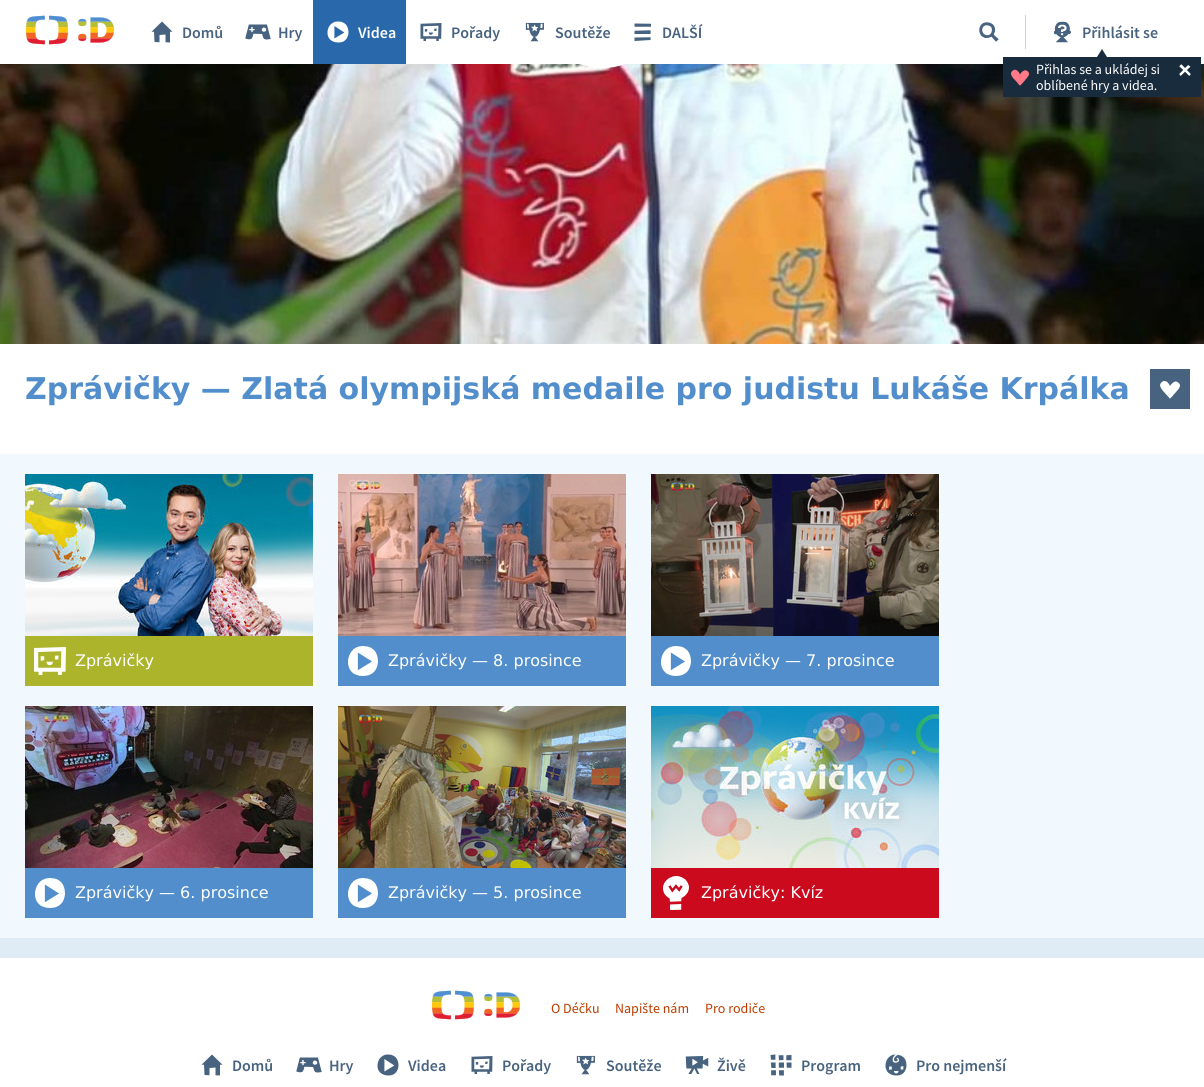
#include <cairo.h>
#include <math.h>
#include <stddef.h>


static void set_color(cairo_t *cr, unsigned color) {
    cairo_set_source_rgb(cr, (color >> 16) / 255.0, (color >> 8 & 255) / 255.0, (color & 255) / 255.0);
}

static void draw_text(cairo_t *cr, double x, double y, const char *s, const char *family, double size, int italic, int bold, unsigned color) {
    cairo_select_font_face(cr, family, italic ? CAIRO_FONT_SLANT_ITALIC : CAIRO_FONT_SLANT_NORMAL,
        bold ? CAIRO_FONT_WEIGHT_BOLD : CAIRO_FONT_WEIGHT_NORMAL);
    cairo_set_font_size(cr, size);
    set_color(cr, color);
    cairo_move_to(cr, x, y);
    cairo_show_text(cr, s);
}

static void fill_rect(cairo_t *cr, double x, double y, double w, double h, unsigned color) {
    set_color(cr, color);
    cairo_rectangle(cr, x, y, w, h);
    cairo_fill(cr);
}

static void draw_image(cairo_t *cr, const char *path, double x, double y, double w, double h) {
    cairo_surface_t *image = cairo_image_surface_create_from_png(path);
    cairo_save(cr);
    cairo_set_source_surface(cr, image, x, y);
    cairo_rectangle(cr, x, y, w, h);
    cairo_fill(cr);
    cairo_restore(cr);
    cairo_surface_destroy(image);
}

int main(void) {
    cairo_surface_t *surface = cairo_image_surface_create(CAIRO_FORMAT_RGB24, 1204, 1087);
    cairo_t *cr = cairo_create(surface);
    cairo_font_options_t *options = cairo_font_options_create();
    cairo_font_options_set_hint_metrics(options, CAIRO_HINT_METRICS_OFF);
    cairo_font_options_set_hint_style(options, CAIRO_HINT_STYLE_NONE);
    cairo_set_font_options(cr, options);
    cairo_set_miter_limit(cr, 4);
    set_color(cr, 0xE0ECF5);
    cairo_paint(cr);
    fill_rect(cr, 0, 0, 1204, 64, 0xFFFFFF);
    draw_image(cr, "assets/img1.png", 25, 15, 90, 30);
    draw_image(cr, "assets/img2.png", 151, 21, 22, 22);
    draw_text(cr, 182, 38, "Domů", "Source Sans Pro SemiBold", 16, 0, 0, 0x486380);
    draw_image(cr, "assets/img3.png", 245, 24, 26, 16);
    draw_text(cr, 278, 38, "Hry", "Source Sans Pro SemiBold", 16, 0, 0, 0x486380);
    fill_rect(cr, 313, 0, 93, 64, 0x2969AB);
    draw_image(cr, "assets/img4.png", 327, 21, 22, 22);
    draw_text(cr, 358, 38, "Videa", "Source Sans Pro SemiBold", 16, 0, 0, 0xFFFFFF);
    draw_image(cr, "assets/img5.png", 420, 23, 22, 18);
    draw_text(cr, 451, 38, "Pořady", "Source Sans Pro SemiBold", 16, 0, 0, 0x486380);
    draw_image(cr, "assets/img6.png", 525, 22, 19, 20);
    draw_text(cr, 555, 38, "Soutěže", "Source Sans Pro SemiBold", 16, 0, 0, 0x486380);
    draw_image(cr, "assets/img7.png", 634, 23, 17, 18);
    draw_text(cr, 662, 38, "DALŠÍ", "Source Sans Pro SemiBold", 16, 0, 0, 0x486380);
    draw_image(cr, "assets/img8.png", 979, 22, 20, 20);
    fill_rect(cr, 1025, 15, 1, 34, 0xC3D7E6);
    draw_image(cr, "assets/img9.png", 1053, 21, 18, 22);
    draw_text(cr, 1082, 38, "Přihlásit se", "Source Sans Pro SemiBold", 16, 0, 0, 0x486380);
    draw_image(cr, "assets/img12.png", 0, 64, 1204, 280);
    fill_rect(cr, 1003, 57, 198, 40, 0x192C3D);
    cairo_new_path(cr);
    cairo_move_to(cr, 1107, 57);
    cairo_line_to(cr, 1097, 57);
    cairo_line_to(cr, 1102, 49);
    cairo_close_path(cr);
    cairo_fill(cr);
    draw_image(cr, "assets/img10.png", 1011, 69, 19, 17);
    draw_text(cr, 1036, 74, "Přihlas se a ukládej si", "Source Sans Pro", 14, 0, 0, 0xFFFFFF);
    draw_text(cr, 1036, 90, "oblíbené hry a videa.", "Source Sans Pro", 14, 0, 0, 0xFFFFFF);
    draw_image(cr, "assets/img11.png", 1179, 64, 12, 12);
    draw_image(cr, "assets/img13.png", 579, 64, 46, 4);
    fill_rect(cr, 0, 344, 1204, 110, 0xFFFFFF);
    draw_text(cr, 25, 399, "Zprávičky — Zlatá olympijská medaile pro judistu Lukáše Krpálka", "DejaVu Sans", 30, 0, 1, 0x518ECB);
    fill_rect(cr, 1150, 369, 40, 40, 0x486380);
    draw_image(cr, "assets/img14.png", 1160, 381, 20, 18);
    fill_rect(cr, 0, 454, 1204, 484, 0xF1F8FE);
    draw_image(cr, "assets/img15.png", 25, 474, 288, 162);
    fill_rect(cr, 25, 636, 288, 50, 0xABB42A);
    draw_image(cr, "assets/img16.png", 34, 647, 32, 28);
    draw_text(cr, 75, 666, "Zprávičky", "DejaVu Sans", 16, 0, 0, 0xFFFFFF);
    draw_image(cr, "assets/img17.png", 338, 474, 288, 162);
    fill_rect(cr, 338, 636, 288, 50, 0x518ECB);
    draw_image(cr, "assets/img18.png", 348, 646, 30, 30);
    draw_text(cr, 388, 666, "Zprávičky — 8. prosince", "DejaVu Sans", 16, 0, 0, 0xFFFFFF);
    draw_image(cr, "assets/img19.png", 651, 474, 288, 162);
    fill_rect(cr, 651, 636, 288, 50, 0x518ECB);
    draw_image(cr, "assets/img18.png", 661, 646, 30, 30);
    draw_text(cr, 701, 666, "Zprávičky — 7. prosince", "DejaVu Sans", 16, 0, 0, 0xFFFFFF);
    draw_image(cr, "assets/img20.png", 25, 706, 288, 162);
    fill_rect(cr, 25, 868, 288, 50, 0x518ECB);
    draw_image(cr, "assets/img18.png", 35, 878, 30, 30);
    draw_text(cr, 75, 898, "Zprávičky — 6. prosince", "DejaVu Sans", 16, 0, 0, 0xFFFFFF);
    draw_image(cr, "assets/img21.png", 338, 706, 288, 162);
    fill_rect(cr, 338, 868, 288, 50, 0x518ECB);
    draw_image(cr, "assets/img18.png", 348, 878, 30, 30);
    draw_text(cr, 388, 898, "Zprávičky — 5. prosince", "DejaVu Sans", 16, 0, 0, 0xFFFFFF);
    draw_image(cr, "assets/img22.png", 651, 706, 288, 162);
    fill_rect(cr, 651, 868, 288, 50, 0xCB0A1D);
    draw_image(cr, "assets/img23.png", 663, 876, 26, 34);
    draw_text(cr, 701, 898, "Zprávičky: Kvíz", "DejaVu Sans", 16, 0, 0, 0xFFFFFF);
    fill_rect(cr, 0, 958, 1204, 129, 0xFFFFFF);
    draw_image(cr, "assets/img1.png", 431, 990, 90, 30);
    draw_text(cr, 551, 1013, "O Déčku", "Source Sans Pro", 14, 0, 0, 0xBD3D00);
    draw_text(cr, 615, 1013, "Napište nám", "Source Sans Pro", 14, 0, 0, 0xBD3D00);
    draw_text(cr, 705, 1013, "Pro rodiče", "Source Sans Pro", 14, 0, 0, 0xBD3D00);
    draw_image(cr, "assets/img2.png", 201, 1054, 22, 22);
    draw_text(cr, 232, 1071, "Domů", "Source Sans Pro SemiBold", 16, 0, 0, 0x486380);
    draw_image(cr, "assets/img3.png", 296, 1057, 26, 16);
    draw_text(cr, 329, 1071, "Hry", "Source Sans Pro SemiBold", 16, 0, 0, 0x486380);
    draw_image(cr, "assets/img24.png", 377, 1054, 22, 22);
    draw_text(cr, 408, 1071, "Videa", "Source Sans Pro SemiBold", 16, 0, 0, 0x486380);
    draw_image(cr, "assets/img5.png", 471, 1056, 22, 18);
    draw_text(cr, 502, 1071, "Pořady", "Source Sans Pro SemiBold", 16, 0, 0, 0x486380);
    draw_image(cr, "assets/img6.png", 576, 1055, 19, 20);
    draw_text(cr, 606, 1071, "Soutěže", "Source Sans Pro SemiBold", 16, 0, 0, 0x486380);
    draw_image(cr, "assets/img25.png", 685, 1056, 24, 18);
    draw_text(cr, 717, 1071, "Živě", "Source Sans Pro SemiBold", 16, 0, 0, 0x486380);
    draw_image(cr, "assets/img26.png", 770, 1054, 22, 22);
    draw_text(cr, 801, 1071, "Program", "Source Sans Pro SemiBold", 16, 0, 0, 0x486380);
    draw_image(cr, "assets/img27.png", 885, 1054, 22, 22);
    draw_text(cr, 916, 1071, "Pro nejmenší", "Source Sans Pro SemiBold", 16, 0, 0, 0x486380);
    cairo_surface_write_to_png(surface, "output.png");
    cairo_font_options_destroy(options);
    cairo_destroy(cr);
    cairo_surface_destroy(surface);
    return 0;
}
